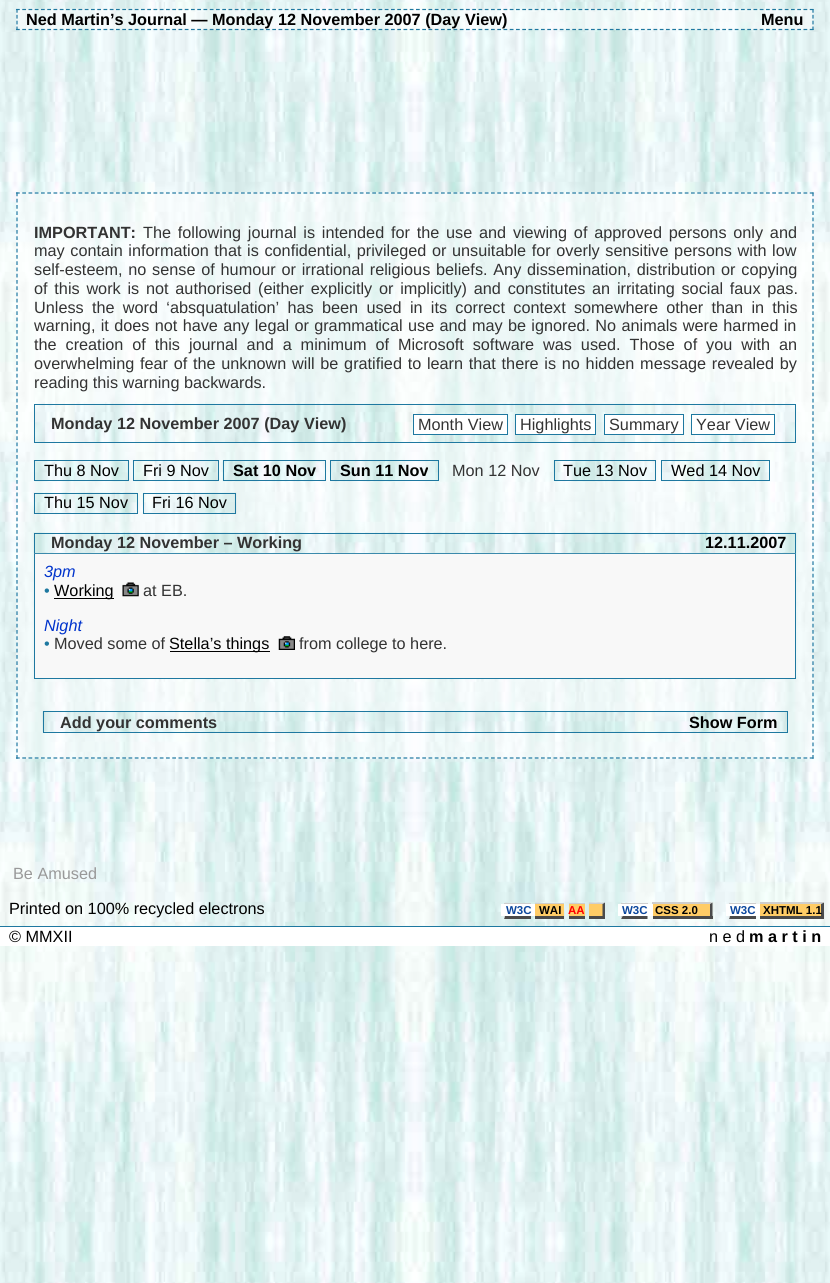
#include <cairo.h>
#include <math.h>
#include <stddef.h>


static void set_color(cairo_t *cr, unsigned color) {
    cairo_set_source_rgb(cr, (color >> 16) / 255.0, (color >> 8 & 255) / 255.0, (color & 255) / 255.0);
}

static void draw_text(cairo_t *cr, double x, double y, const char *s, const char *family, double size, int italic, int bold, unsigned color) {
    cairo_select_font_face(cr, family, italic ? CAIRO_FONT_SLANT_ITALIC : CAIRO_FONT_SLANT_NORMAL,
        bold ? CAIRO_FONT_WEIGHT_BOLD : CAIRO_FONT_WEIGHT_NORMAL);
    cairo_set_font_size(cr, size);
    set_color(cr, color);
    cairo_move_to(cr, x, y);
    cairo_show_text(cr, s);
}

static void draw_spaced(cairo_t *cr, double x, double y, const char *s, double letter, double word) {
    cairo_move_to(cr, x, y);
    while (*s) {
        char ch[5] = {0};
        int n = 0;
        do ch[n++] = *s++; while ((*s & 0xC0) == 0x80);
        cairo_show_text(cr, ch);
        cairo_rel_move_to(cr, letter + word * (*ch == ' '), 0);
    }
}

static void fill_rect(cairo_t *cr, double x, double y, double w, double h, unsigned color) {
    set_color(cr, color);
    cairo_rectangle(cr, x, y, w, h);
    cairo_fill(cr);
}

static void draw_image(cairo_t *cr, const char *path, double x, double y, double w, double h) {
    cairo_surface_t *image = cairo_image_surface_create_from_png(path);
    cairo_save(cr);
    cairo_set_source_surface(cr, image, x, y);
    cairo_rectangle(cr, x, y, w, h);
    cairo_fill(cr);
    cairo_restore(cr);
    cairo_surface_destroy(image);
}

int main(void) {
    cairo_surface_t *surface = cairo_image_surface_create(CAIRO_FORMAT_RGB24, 830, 1283);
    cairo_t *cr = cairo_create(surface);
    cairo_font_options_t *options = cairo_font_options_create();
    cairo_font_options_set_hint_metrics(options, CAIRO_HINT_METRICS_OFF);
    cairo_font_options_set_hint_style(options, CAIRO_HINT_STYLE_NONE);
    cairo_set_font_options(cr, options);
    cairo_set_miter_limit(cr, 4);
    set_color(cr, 0xFFFFFF);
    cairo_paint(cr);
    draw_image(cr, "assets/img1.png", 0, 0, 830, 1283);
    draw_image(cr, "assets/img2.png", 16, 8, 798, 22);
    cairo_new_path(cr);
    cairo_move_to(cr, 16, 9.5);
    cairo_line_to(cr, 814, 9.5);
    set_color(cr, 0x1E78A0);
    cairo_set_line_width(cr, 1.2);
    cairo_set_dash(cr, (double[]){3.75, 2.5}, 2, 0);
    cairo_stroke(cr);
    cairo_new_path(cr);
    cairo_move_to(cr, 813, 9);
    cairo_line_to(cr, 813, 30);
    cairo_set_dash(cr, (double[]){3.75, 2.09}, 2, 0);
    cairo_stroke(cr);
    cairo_new_path(cr);
    cairo_move_to(cr, 16, 29.5);
    cairo_line_to(cr, 814, 29.5);
    cairo_set_dash(cr, (double[]){3.75, 2.5}, 2, 0);
    cairo_stroke(cr);
    cairo_new_path(cr);
    cairo_move_to(cr, 17, 9);
    cairo_line_to(cr, 17, 30);
    cairo_set_dash(cr, (double[]){3.75, 2.09}, 2, 0);
    cairo_stroke(cr);
    draw_text(cr, 26, 25, "Ned Martin’s Journal — Monday 12 November 2007 (Day View)", "Liberation Sans", 16.25, 0, 1, 0x000000);
    draw_text(cr, 761, 25, "Menu", "Liberation Sans", 16.25, 0, 1, 0x000000);
    cairo_set_source_rgba(cr, 1, 1, 1, 0.5);
    cairo_rectangle(cr, 16, 192, 798, 567);
    cairo_fill(cr);
    cairo_new_path(cr);
    cairo_move_to(cr, 16, 193);
    cairo_line_to(cr, 814, 193);
    set_color(cr, 0x1E78A0);
    cairo_set_dash(cr, (double[]){3.75, 2.5}, 2, 0);
    cairo_stroke(cr);
    cairo_new_path(cr);
    cairo_move_to(cr, 813, 192.5);
    cairo_line_to(cr, 813, 759);
    cairo_stroke(cr);
    cairo_new_path(cr);
    cairo_move_to(cr, 16, 758);
    cairo_line_to(cr, 814, 758);
    cairo_stroke(cr);
    cairo_new_path(cr);
    cairo_move_to(cr, 17, 192.5);
    cairo_line_to(cr, 17, 759);
    cairo_stroke(cr);
    draw_text(cr, 34, 238, "IMPORTANT:", "Liberation Sans", 16.25, 0, 1, 0x333333);
    cairo_select_font_face(cr, "Liberation Sans", CAIRO_FONT_SLANT_NORMAL, CAIRO_FONT_WEIGHT_NORMAL);
    draw_spaced(cr, 143, 238, "The following journal is intended for the use and viewing of approved persons only and", 0, 2.25);
    draw_spaced(cr, 34, 256, "may contain information that is confidential, privileged or unsuitable for overly sensitive persons with low", 0, 1.1);
    draw_spaced(cr, 34, 275, "self-esteem, no sense of humour or irrational religious beliefs. Any dissemination, distribution or copying", 0, 1.25);
    draw_spaced(cr, 34, 294, "of this work is not authorised (either explicitly or implicitly) and constitutes an irritating social faux pas.", 0, 2.25);
    draw_spaced(cr, 34, 313, "Unless the word ‘absquatulation’ has been used in its correct context somewhere other than in this", 0, 3.75);
    draw_spaced(cr, 34, 331, "warning, it does not have any legal or grammatical use and may be ignored. No animals were harmed in", 0, 0.8);
    draw_spaced(cr, 34, 350, "the creation of this journal and a minimum of Microsoft software was used. Those of you with an", 0, 4.4);
    draw_spaced(cr, 34, 369, "overwhelming fear of the unknown will be gratified to learn that there is no hidden message revealed by", 0, 1.2);
    draw_text(cr, 34, 388, "reading this warning backwards.", "Liberation Sans", 16.25, 0, 0, 0x333333);
    draw_image(cr, "assets/img3.png", 34, 403, 762, 39);
    cairo_rectangle(cr, 34.5, 404.5, 761, 38);
    set_color(cr, 0x1E78A0);
    cairo_set_line_width(cr, 1);
    cairo_set_dash(cr, NULL, 0, 0);
    cairo_stroke(cr);
    draw_text(cr, 51, 429, "Monday 12 November 2007 (Day View)", "Liberation Sans", 16.25, 0, 1, 0x333333);
    set_color(cr, 0xFFFFFF);
    cairo_rectangle(cr, 413.5, 414.5, 94, 20);
    cairo_fill_preserve(cr);
    set_color(cr, 0x1E78A0);
    cairo_stroke(cr);
    draw_text(cr, 418, 430, "Month View", "Liberation Sans", 16.25, 0, 0, 0x333333);
    set_color(cr, 0xFFFFFF);
    cairo_rectangle(cr, 515.5, 414.5, 80, 20);
    cairo_fill_preserve(cr);
    set_color(cr, 0x1E78A0);
    cairo_stroke(cr);
    draw_text(cr, 520, 430, "Highlights", "Liberation Sans", 16.25, 0, 0, 0x333333);
    set_color(cr, 0xFFFFFF);
    cairo_rectangle(cr, 604.5, 414.5, 79, 20);
    cairo_fill_preserve(cr);
    set_color(cr, 0x1E78A0);
    cairo_stroke(cr);
    draw_text(cr, 609, 430, "Summary", "Liberation Sans", 16.25, 0, 0, 0x333333);
    set_color(cr, 0xFFFFFF);
    cairo_rectangle(cr, 691.5, 414.5, 83, 20);
    cairo_fill_preserve(cr);
    set_color(cr, 0x1E78A0);
    cairo_stroke(cr);
    draw_text(cr, 696, 430, "Year View", "Liberation Sans", 16.25, 0, 0, 0x333333);
    draw_image(cr, "assets/img4.png", 33, 460, 96, 22);
    draw_image(cr, "assets/img5.png", 132, 460, 87, 22);
    draw_image(cr, "assets/img6.png", 222, 460, 104, 22);
    draw_image(cr, "assets/img7.png", 330, 461, 109, 21);
    draw_image(cr, "assets/img8.png", 553, 460, 103, 22);
    draw_image(cr, "assets/img9.png", 661, 461, 109, 21);
    cairo_rectangle(cr, 34.5, 460.5, 94, 20);
    set_color(cr, 0x1E78A0);
    cairo_stroke(cr);
    draw_text(cr, 44, 476, "Thu 8 Nov", "Liberation Sans", 16.25, 0, 0, 0x000000);
    cairo_rectangle(cr, 133.5, 460.5, 85, 20);
    set_color(cr, 0x1E78A0);
    cairo_stroke(cr);
    draw_text(cr, 143, 476, "Fri 9 Nov", "Liberation Sans", 16.25, 0, 0, 0x000000);
    cairo_rectangle(cr, 223.5, 460.5, 102, 20);
    set_color(cr, 0x1E78A0);
    cairo_stroke(cr);
    draw_text(cr, 233, 476, "Sat 10 Nov", "Liberation Sans", 16.25, 0, 1, 0x000000);
    cairo_rectangle(cr, 330.5, 460.5, 108, 20);
    set_color(cr, 0x1E78A0);
    cairo_stroke(cr);
    draw_text(cr, 340, 476, "Sun 11 Nov", "Liberation Sans", 16.25, 0, 1, 0x000000);
    draw_text(cr, 452, 476, "Mon 12 Nov", "Liberation Sans", 16.25, 0, 0, 0x333333);
    cairo_rectangle(cr, 554.5, 460.5, 101, 20);
    set_color(cr, 0x1E78A0);
    cairo_stroke(cr);
    draw_text(cr, 563, 476, "Tue 13 Nov", "Liberation Sans", 16.25, 0, 0, 0x000000);
    cairo_rectangle(cr, 661.5, 460.5, 108, 20);
    set_color(cr, 0x1E78A0);
    cairo_stroke(cr);
    draw_text(cr, 671, 476, "Wed 14 Nov", "Liberation Sans", 16.25, 0, 0, 0x000000);
    draw_image(cr, "assets/img10.png", 33, 492, 105, 22);
    draw_image(cr, "assets/img11.png", 142, 492, 95, 22);
    cairo_rectangle(cr, 34.5, 493.5, 103, 20);
    set_color(cr, 0x1E78A0);
    cairo_stroke(cr);
    draw_text(cr, 44, 508, "Thu 15 Nov", "Liberation Sans", 16.25, 0, 0, 0x000000);
    cairo_rectangle(cr, 143.5, 493.5, 92, 20);
    set_color(cr, 0x1E78A0);
    cairo_stroke(cr);
    draw_text(cr, 152, 508, "Fri 16 Nov", "Liberation Sans", 16.25, 0, 0, 0x000000);
    draw_image(cr, "assets/img12.png", 33, 532, 764, 22);
    cairo_rectangle(cr, 34.5, 533.5, 761, 20);
    set_color(cr, 0x1E78A0);
    cairo_stroke(cr);
    draw_text(cr, 51, 548, "Monday 12 November – Working", "Liberation Sans", 16.25, 0, 1, 0x333333);
    draw_text(cr, 705, 548, "12.11.2007", "Liberation Sans", 16.25, 0, 1, 0x000000);
    fill_rect(cr, 35, 554, 760, 124, 0xF8F8F8);
    fill_rect(cr, 34, 553, 762, 1, 0x3B8AAC);
    fill_rect(cr, 795, 554, 1, 125, 0x1E78A0);
    fill_rect(cr, 34, 678, 762, 1, 0x1E78A0);
    fill_rect(cr, 34, 554, 1, 125, 0x1E78A0);
    draw_text(cr, 44, 577, "3pm", "Liberation Sans", 16.25, 1, 0, 0x0033CC);
    draw_text(cr, 44, 596, "•", "Liberation Sans", 16.25, 0, 0, 0x1E78A0);
    fill_rect(cr, 54, 598, 60, 1, 0x000000);
    draw_text(cr, 54, 596, "Working", "Liberation Sans", 16.25, 0, 0, 0x000000);
    draw_image(cr, "assets/img13.png", 122, 582, 17, 15);
    draw_text(cr, 143, 596, "at EB.", "Liberation Sans", 16.25, 0, 0, 0x333333);
    draw_text(cr, 44, 631, "Night", "Liberation Sans", 16.25, 1, 0, 0x0033CC);
    draw_text(cr, 44, 649, "•", "Liberation Sans", 16.25, 0, 0, 0x1E78A0);
    draw_text(cr, 54, 649, "Moved some of", "Liberation Sans", 16.25, 0, 0, 0x333333);
    fill_rect(cr, 170, 651, 100, 1, 0x000000);
    draw_text(cr, 169, 649, "Stella’s things", "Liberation Sans", 16.25, 0, 0, 0x000000);
    draw_image(cr, "assets/img14.png", 278, 636, 17, 14);
    draw_text(cr, 299, 649, "from college to here.", "Liberation Sans", 16.25, 0, 0, 0x333333);
    draw_image(cr, "assets/img15.png", 42, 711, 745, 22);
    cairo_rectangle(cr, 43.5, 711.5, 744, 21);
    set_color(cr, 0x1E78A0);
    cairo_stroke(cr);
    draw_text(cr, 60, 728, "Add your comments", "Liberation Sans", 16.25, 0, 1, 0x333333);
    draw_text(cr, 689, 728, "Show Form", "Liberation Sans", 16.25, 0, 1, 0x000000);
    draw_text(cr, 13, 879, "Be Amused", "Liberation Sans", 16.25, 0, 0, 0x999999);
    draw_text(cr, 9, 914, "Printed on 100% recycled electrons", "Liberation Sans", 16.25, 0, 0, 0x000000);
    fill_rect(cr, 504, 903, 27, 1, 0xCECECE);
    set_color(cr, 0x4A4A4A);
    cairo_new_path(cr);
    cairo_move_to(cr, 531, 919);
    cairo_line_to(cr, 504, 919);
    cairo_line_to(cr, 505, 916);
    cairo_line_to(cr, 531, 916);
    cairo_close_path(cr);
    cairo_fill(cr);
    set_color(cr, 0xCECECE);
    cairo_new_path(cr);
    cairo_move_to(cr, 504, 919);
    cairo_line_to(cr, 504, 902.5);
    cairo_line_to(cr, 505, 904);
    cairo_line_to(cr, 505, 916);
    cairo_close_path(cr);
    cairo_fill(cr);
    fill_rect(cr, 501, 904, 34, 12, 0xFFFFFF);
    draw_text(cr, 506, 914, "W3C", "Liberation Sans", 11.5, 0, 1, 0x0C479D);
    fill_rect(cr, 535, 904, 29, 12, 0xFFCC66);
    draw_text(cr, 539, 914, "WAI", "Liberation Sans", 11.5, 0, 1, 0x000000);
    fill_rect(cr, 535, 903, 29, 1, 0xCECECE);
    fill_rect(cr, 535, 916, 29, 3, 0x4A4A4A);
    fill_rect(cr, 569, 904, 16, 12, 0xFFCC66);
    draw_text(cr, 568, 914, "AA", "Liberation Sans", 11.5, 0, 1, 0xFF0000);
    fill_rect(cr, 569, 903, 16, 1, 0xCECECE);
    fill_rect(cr, 569, 916, 16, 3, 0x4A4A4A);
    fill_rect(cr, 589, 904, 14, 12, 0xFFCC66);
    set_color(cr, 0xCECECE);
    cairo_new_path(cr);
    cairo_move_to(cr, 589, 902.5);
    cairo_line_to(cr, 605, 902.5);
    cairo_line_to(cr, 602.5, 904);
    cairo_line_to(cr, 589, 904);
    cairo_close_path(cr);
    cairo_fill(cr);
    set_color(cr, 0x4A4A4A);
    cairo_new_path(cr);
    cairo_move_to(cr, 605, 902.5);
    cairo_line_to(cr, 605, 919);
    cairo_line_to(cr, 602.5, 916);
    cairo_line_to(cr, 602.5, 904);
    cairo_close_path(cr);
    cairo_fill(cr);
    fill_rect(cr, 589, 916, 16, 3, 0x4A4A4A);
    fill_rect(cr, 621, 903, 27, 1, 0xCECECE);
    set_color(cr, 0x4A4A4A);
    cairo_new_path(cr);
    cairo_move_to(cr, 647.5, 919);
    cairo_line_to(cr, 621, 919);
    cairo_line_to(cr, 622.5, 916);
    cairo_line_to(cr, 647.5, 916);
    cairo_close_path(cr);
    cairo_fill(cr);
    set_color(cr, 0xCECECE);
    cairo_new_path(cr);
    cairo_move_to(cr, 621, 919);
    cairo_line_to(cr, 621, 902.5);
    cairo_line_to(cr, 622.5, 904);
    cairo_line_to(cr, 622.5, 916);
    cairo_close_path(cr);
    cairo_fill(cr);
    fill_rect(cr, 618, 904, 35, 12, 0xFFFFFF);
    draw_text(cr, 622, 914, "W3C", "Liberation Sans", 11.5, 0, 1, 0x0C479D);
    fill_rect(cr, 653, 904, 57, 12, 0xFFCC66);
    draw_text(cr, 655, 914, "CSS 2.0", "Liberation Sans", 11.5, 0, 1, 0x000000);
    set_color(cr, 0xCECECE);
    cairo_new_path(cr);
    cairo_move_to(cr, 652, 902);
    cairo_line_to(cr, 712, 902);
    cairo_line_to(cr, 710, 904);
    cairo_line_to(cr, 652, 904);
    cairo_close_path(cr);
    cairo_fill(cr);
    set_color(cr, 0x4A4A4A);
    cairo_new_path(cr);
    cairo_move_to(cr, 712.5, 902.5);
    cairo_line_to(cr, 712.5, 919);
    cairo_line_to(cr, 710, 916);
    cairo_line_to(cr, 710, 904);
    cairo_close_path(cr);
    cairo_fill(cr);
    fill_rect(cr, 653, 916, 60, 3, 0x4A4A4A);
    fill_rect(cr, 729, 903, 27, 1, 0xCECECE);
    set_color(cr, 0x4A4A4A);
    cairo_new_path(cr);
    cairo_move_to(cr, 756, 919);
    cairo_line_to(cr, 729, 919);
    cairo_line_to(cr, 730, 916);
    cairo_line_to(cr, 756, 916);
    cairo_close_path(cr);
    cairo_fill(cr);
    set_color(cr, 0xCECECE);
    cairo_new_path(cr);
    cairo_move_to(cr, 729, 919);
    cairo_line_to(cr, 729, 902.5);
    cairo_line_to(cr, 730, 904);
    cairo_line_to(cr, 730, 916);
    cairo_close_path(cr);
    cairo_fill(cr);
    fill_rect(cr, 726, 904, 34, 12, 0xFFFFFF);
    draw_text(cr, 730, 914, "W3C", "Liberation Sans", 11.5, 0, 1, 0x0C479D);
    fill_rect(cr, 760, 904, 61, 12, 0xFFCC66);
    set_color(cr, 0xCECECE);
    cairo_new_path(cr);
    cairo_move_to(cr, 760, 902);
    cairo_line_to(cr, 824, 902);
    cairo_line_to(cr, 821, 904);
    cairo_line_to(cr, 760, 904);
    cairo_close_path(cr);
    cairo_fill(cr);
    set_color(cr, 0x4A4A4A);
    cairo_new_path(cr);
    cairo_move_to(cr, 824, 902.5);
    cairo_line_to(cr, 824, 919);
    cairo_line_to(cr, 821, 916);
    cairo_line_to(cr, 821, 904);
    cairo_close_path(cr);
    cairo_fill(cr);
    draw_text(cr, 763, 914, "XHTML 1.1", "Liberation Sans", 11.5, 0, 1, 0x000000);
    fill_rect(cr, 760, 916, 64, 3, 0x4A4A4A);
    fill_rect(cr, 0, 927, 830, 19, 0xFFFFFF);
    fill_rect(cr, 0, 926, 830, 1, 0x1E78A0);
    draw_text(cr, 9, 942, "© MMXII", "Liberation Sans", 16.25, 0, 0, 0x000000);
    draw_text(cr, 709, 942, "n e d", "Liberation Sans", 16.25, 0, 0, 0x000000);
    draw_text(cr, 749, 942, "m a r t i n", "Liberation Sans", 16.25, 0, 1, 0x000000);
    cairo_surface_write_to_png(surface, "output.png");
    cairo_font_options_destroy(options);
    cairo_destroy(cr);
    cairo_surface_destroy(surface);
    return 0;
}
